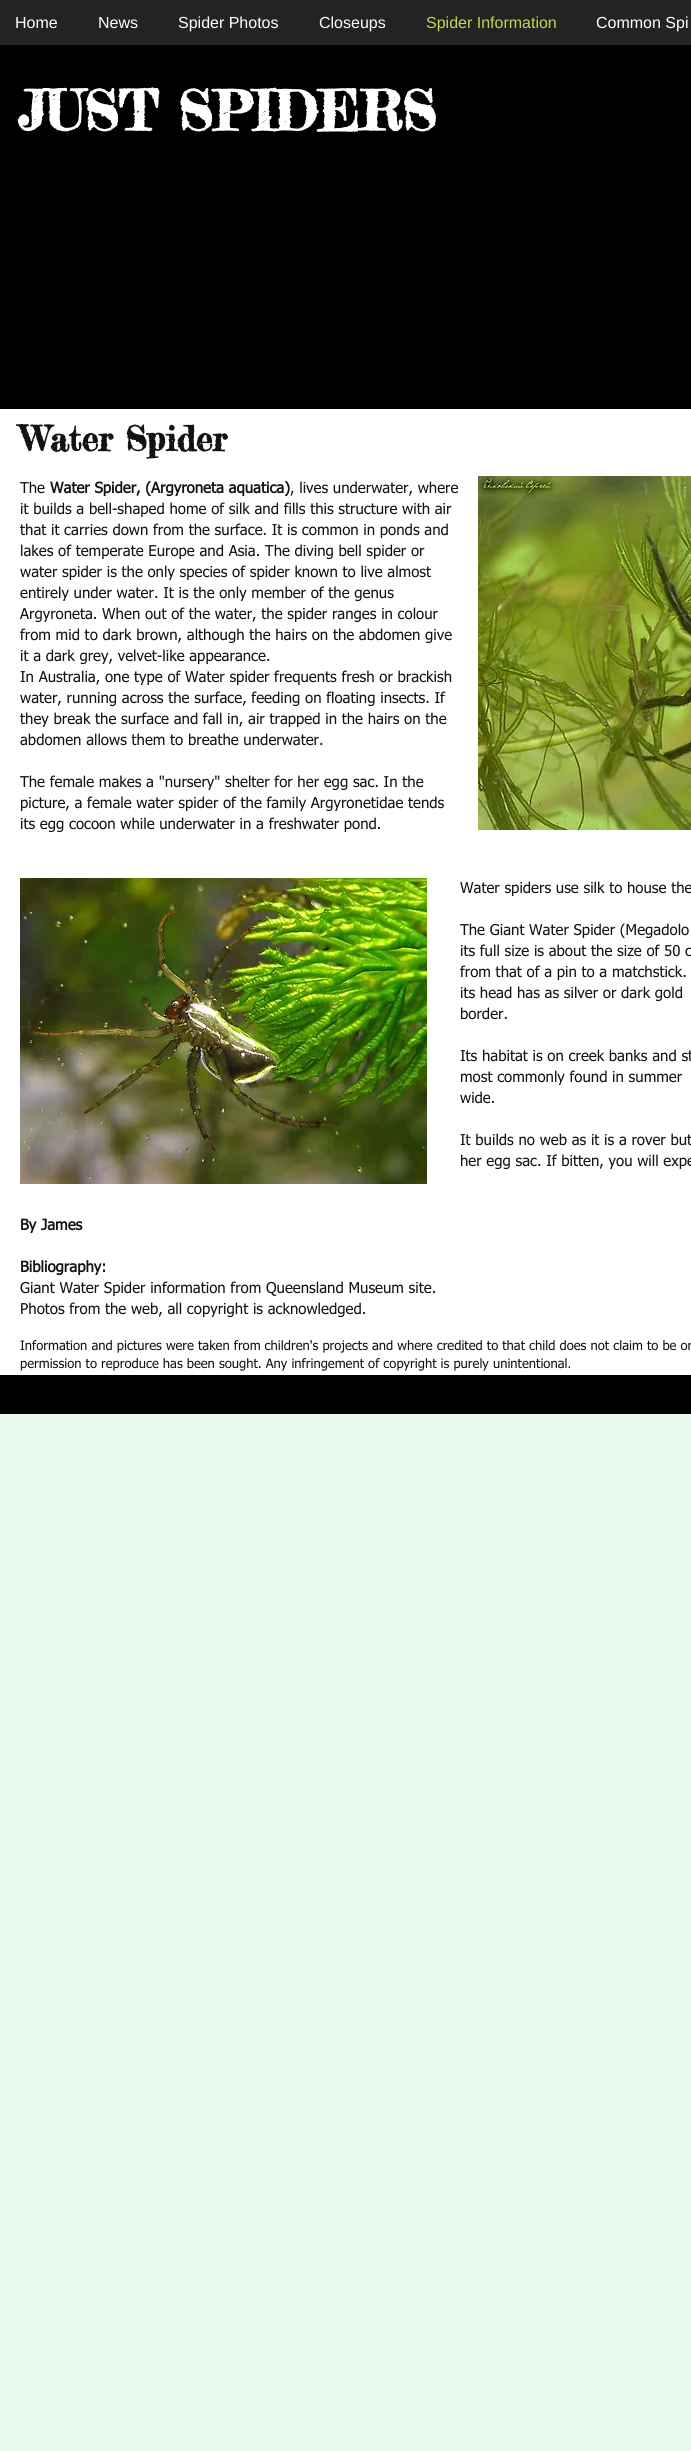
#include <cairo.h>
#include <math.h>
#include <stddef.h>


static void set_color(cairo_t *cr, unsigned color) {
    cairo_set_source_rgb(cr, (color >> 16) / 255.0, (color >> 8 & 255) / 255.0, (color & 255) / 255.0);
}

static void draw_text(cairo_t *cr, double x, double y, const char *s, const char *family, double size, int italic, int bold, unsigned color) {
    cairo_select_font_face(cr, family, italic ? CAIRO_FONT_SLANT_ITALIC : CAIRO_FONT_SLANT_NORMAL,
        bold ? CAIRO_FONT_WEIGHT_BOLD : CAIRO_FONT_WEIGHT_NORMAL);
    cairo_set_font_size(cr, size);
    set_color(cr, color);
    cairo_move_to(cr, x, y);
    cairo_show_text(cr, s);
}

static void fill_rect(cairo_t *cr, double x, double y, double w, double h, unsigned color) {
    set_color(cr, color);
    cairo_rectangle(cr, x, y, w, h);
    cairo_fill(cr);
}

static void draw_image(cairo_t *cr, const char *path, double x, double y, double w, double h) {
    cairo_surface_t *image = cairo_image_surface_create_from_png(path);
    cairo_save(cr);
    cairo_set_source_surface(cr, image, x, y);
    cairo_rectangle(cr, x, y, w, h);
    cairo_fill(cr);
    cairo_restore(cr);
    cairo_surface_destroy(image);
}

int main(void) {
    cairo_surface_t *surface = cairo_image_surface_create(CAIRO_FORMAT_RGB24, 691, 2451);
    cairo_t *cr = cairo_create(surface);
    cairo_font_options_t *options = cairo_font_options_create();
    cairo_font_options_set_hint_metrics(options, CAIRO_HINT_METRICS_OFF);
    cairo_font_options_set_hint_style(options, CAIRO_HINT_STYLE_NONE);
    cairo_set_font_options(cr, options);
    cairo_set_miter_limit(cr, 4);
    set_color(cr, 0xE9F9ED);
    cairo_paint(cr);
    fill_rect(cr, 0, 0, 691, 45, 0x242323);
    draw_text(cr, 15, 28, "Home", "Liberation Sans", 16, 0, 0, 0xFFFFFF);
    draw_text(cr, 98, 28, "News", "Liberation Sans", 16, 0, 0, 0xFFFFFF);
    draw_text(cr, 178, 28, "Spider Photos", "Liberation Sans", 16, 0, 0, 0xFFFFFF);
    draw_text(cr, 319, 28, "Closeups", "Liberation Sans", 16, 0, 0, 0xFFFFFF);
    draw_text(cr, 426, 28, "Spider Information", "Liberation Sans", 16, 0, 0, 0xBADA55);
    draw_text(cr, 596, 28, "Common Spi", "Liberation Sans", 16, 0, 0, 0xFFFFFF);
    fill_rect(cr, 0, 45, 691, 364, 0x000000);
    draw_text(cr, 18, 131, "JUST SPIDERS", "Fredericka the Great", 55, 0, 1, 0xFFFFFF);
    fill_rect(cr, 0, 409, 691, 966, 0xFFFFFF);
    draw_text(cr, 20, 451, "Water Spider", "Fredericka the Great", 34, 0, 1, 0x131313);
    draw_text(cr, 20, 493, "The", "tahoma", 15, 0, 0, 0x131313);
    draw_text(cr, 50, 493, "Water Spider, (Argyroneta aquatica)", "tahoma", 15, 0, 1, 0x131313);
    draw_text(cr, 290, 493, ", lives underwater, where", "tahoma", 15, 0, 0, 0x131313);
    draw_text(cr, 20, 514, "it builds a bell-shaped home of silk and fills this structure with air", "tahoma", 15, 0, 0, 0x131313);
    draw_text(cr, 20, 535, "that it carries down from the surface. It is common in ponds and", "tahoma", 15, 0, 0, 0x131313);
    draw_text(cr, 20, 556, "lakes of temperate Europe and Asia. The diving bell spider or", "tahoma", 15, 0, 0, 0x131313);
    draw_text(cr, 20, 577, "water spider is the only species of spider known to live almost", "tahoma", 15, 0, 0, 0x131313);
    draw_text(cr, 20, 598, "entirely under water. It is the only member of the genus", "tahoma", 15, 0, 0, 0x131313);
    draw_text(cr, 20, 619, "Argyroneta. When out of the water, the spider ranges in colour", "tahoma", 15, 0, 0, 0x131313);
    draw_text(cr, 20, 640, "from mid to dark brown, although the hairs on the abdomen give", "tahoma", 15, 0, 0, 0x131313);
    draw_text(cr, 20, 661, "it a dark grey, velvet-like appearance.", "tahoma", 15, 0, 0, 0x131313);
    draw_text(cr, 20, 682, "In Australia, one type of Water spider frequents fresh or brackish", "tahoma", 15, 0, 0, 0x131313);
    draw_text(cr, 20, 703, "water, running across the surface, feeding on floating insects. If", "tahoma", 15, 0, 0, 0x131313);
    draw_text(cr, 20, 724, "they break the surface and fall in, air trapped in the hairs on the", "tahoma", 15, 0, 0, 0x131313);
    draw_text(cr, 20, 745, "abdomen allows them to breathe underwater.", "tahoma", 15, 0, 0, 0x131313);
    draw_text(cr, 20, 787, "The female makes a \"nursery\" shelter for her egg sac. In the", "tahoma", 15, 0, 0, 0x131313);
    draw_text(cr, 20, 808, "picture, a female water spider of the family Argyronetidae tends", "tahoma", 15, 0, 0, 0x131313);
    draw_text(cr, 20, 829, "its egg cocoon while underwater in a freshwater pond.", "tahoma", 15, 0, 0, 0x131313);
    draw_image(cr, "assets/img1.png", 478, 476, 213, 354);
    draw_image(cr, "assets/img2.png", 20, 878, 407, 306);
    draw_text(cr, 460, 893, "Water spiders use silk to house the", "tahoma", 15, 0, 0, 0x131313);
    draw_text(cr, 460, 935, "The Giant Water Spider (Megadolo", "tahoma", 15, 0, 0, 0x131313);
    draw_text(cr, 460, 956, "its full size is about the size of 50 c", "tahoma", 15, 0, 0, 0x131313);
    draw_text(cr, 460, 977, "from that of a pin to a matchstick.", "tahoma", 15, 0, 0, 0x131313);
    draw_text(cr, 460, 998, "its head has as silver or dark gold", "tahoma", 15, 0, 0, 0x131313);
    draw_text(cr, 460, 1019, "border.", "tahoma", 15, 0, 0, 0x131313);
    draw_text(cr, 460, 1061, "Its habitat is on creek banks and st", "tahoma", 15, 0, 0, 0x131313);
    draw_text(cr, 460, 1082, "most commonly found in summer", "tahoma", 15, 0, 0, 0x131313);
    draw_text(cr, 460, 1103, "wide.", "tahoma", 15, 0, 0, 0x131313);
    draw_text(cr, 460, 1145, "It builds no web as it is a rover but", "tahoma", 15, 0, 0, 0x131313);
    draw_text(cr, 460, 1166, "her egg sac. If bitten, you will expe", "tahoma", 15, 0, 0, 0x131313);
    draw_text(cr, 20, 1230, "By James", "tahoma", 15, 0, 1, 0x131313);
    draw_text(cr, 20, 1272, "Bibliography:", "tahoma", 15, 0, 1, 0x131313);
    draw_text(cr, 20, 1293, "Giant Water Spider information from Queensland Museum site.", "tahoma", 15, 0, 0, 0x131313);
    draw_text(cr, 20, 1314, "Photos from the web, all copyright is acknowledged.", "tahoma", 15, 0, 0, 0x131313);
    draw_text(cr, 20, 1350, "Information and pictures were taken from children's projects and where credited to that child does not claim to be or", "tahoma", 13, 0, 0, 0x131313);
    draw_text(cr, 20, 1368, "permission to reproduce has been sought. Any infringement of copyright is purely unintentional.", "tahoma", 13, 0, 0, 0x131313);
    fill_rect(cr, 0, 1375, 691, 39, 0x000000);
    cairo_surface_write_to_png(surface, "output.png");
    cairo_font_options_destroy(options);
    cairo_destroy(cr);
    cairo_surface_destroy(surface);
    return 0;
}
